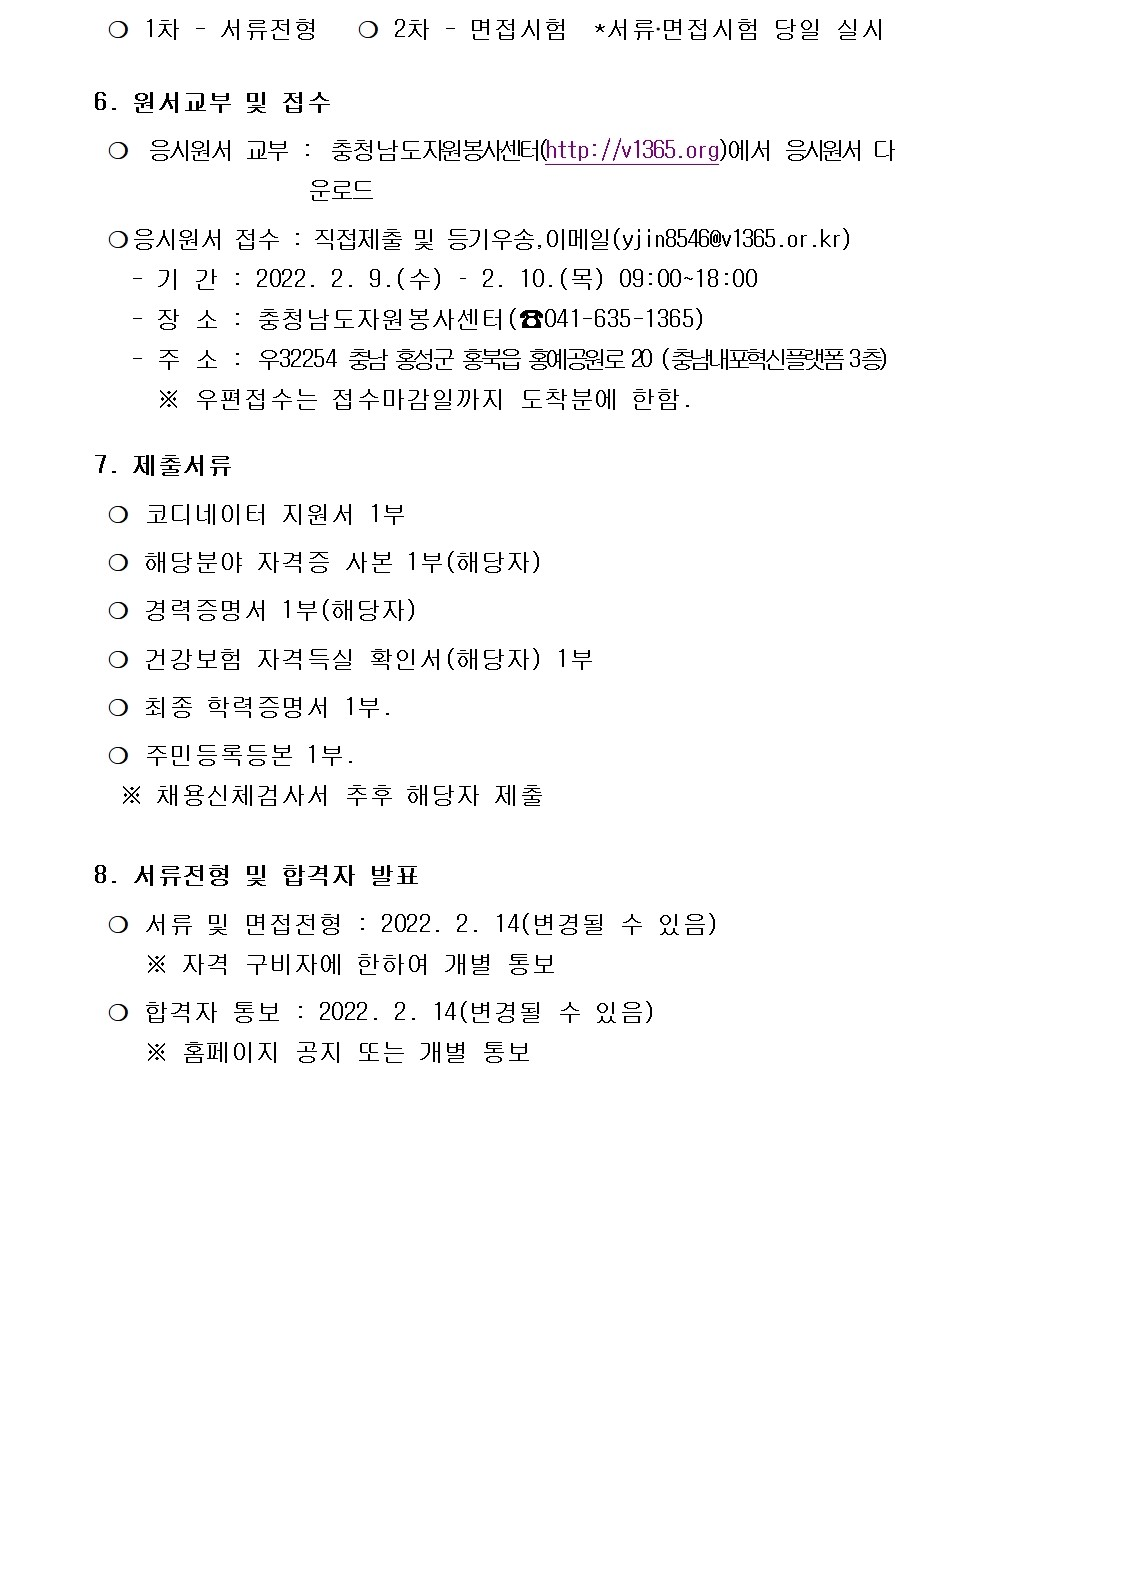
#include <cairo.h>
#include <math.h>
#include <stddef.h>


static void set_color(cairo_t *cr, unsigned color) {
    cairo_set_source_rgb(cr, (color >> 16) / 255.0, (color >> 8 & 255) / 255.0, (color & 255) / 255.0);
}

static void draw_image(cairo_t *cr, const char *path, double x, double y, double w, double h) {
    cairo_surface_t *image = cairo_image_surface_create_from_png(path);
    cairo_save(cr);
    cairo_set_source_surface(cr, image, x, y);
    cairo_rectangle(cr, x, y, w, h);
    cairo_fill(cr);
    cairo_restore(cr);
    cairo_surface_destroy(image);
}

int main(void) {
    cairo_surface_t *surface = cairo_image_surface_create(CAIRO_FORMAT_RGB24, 1145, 1586);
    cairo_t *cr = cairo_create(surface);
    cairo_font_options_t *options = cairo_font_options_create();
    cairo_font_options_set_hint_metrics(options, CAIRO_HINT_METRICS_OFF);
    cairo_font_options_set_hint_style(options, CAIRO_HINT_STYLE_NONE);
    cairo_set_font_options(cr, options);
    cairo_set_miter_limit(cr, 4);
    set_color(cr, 0xFFFFFF);
    cairo_paint(cr);
    draw_image(cr, "assets/img1.png", 88, 16, 808, 1048);
    cairo_surface_write_to_png(surface, "output.png");
    cairo_font_options_destroy(options);
    cairo_destroy(cr);
    cairo_surface_destroy(surface);
    return 0;
}
